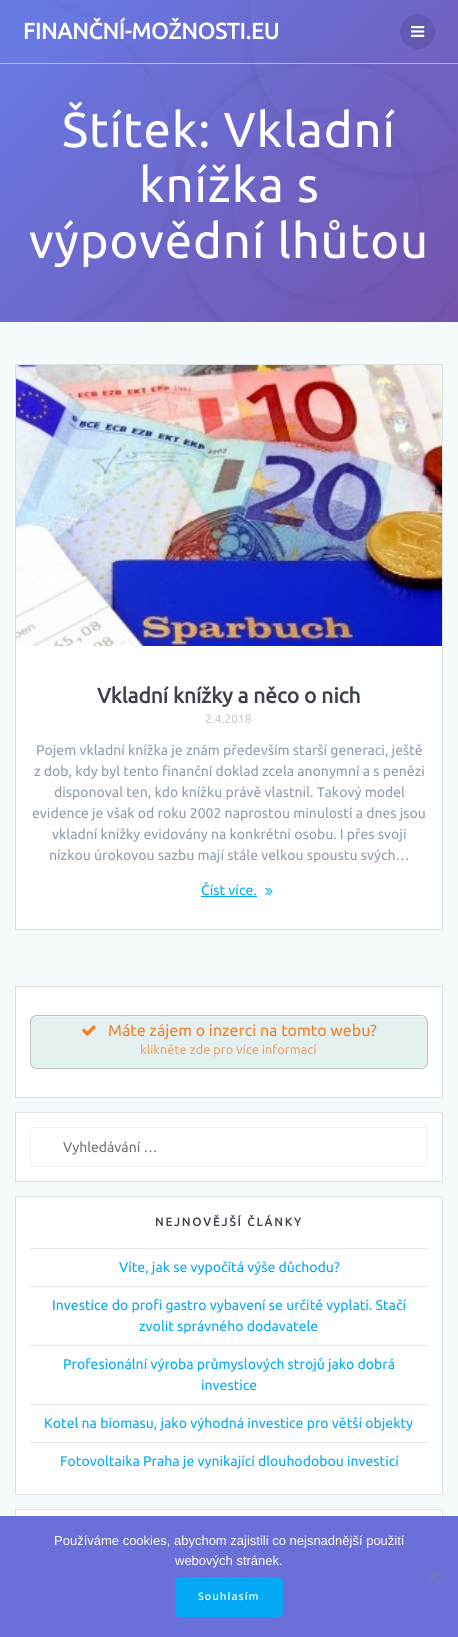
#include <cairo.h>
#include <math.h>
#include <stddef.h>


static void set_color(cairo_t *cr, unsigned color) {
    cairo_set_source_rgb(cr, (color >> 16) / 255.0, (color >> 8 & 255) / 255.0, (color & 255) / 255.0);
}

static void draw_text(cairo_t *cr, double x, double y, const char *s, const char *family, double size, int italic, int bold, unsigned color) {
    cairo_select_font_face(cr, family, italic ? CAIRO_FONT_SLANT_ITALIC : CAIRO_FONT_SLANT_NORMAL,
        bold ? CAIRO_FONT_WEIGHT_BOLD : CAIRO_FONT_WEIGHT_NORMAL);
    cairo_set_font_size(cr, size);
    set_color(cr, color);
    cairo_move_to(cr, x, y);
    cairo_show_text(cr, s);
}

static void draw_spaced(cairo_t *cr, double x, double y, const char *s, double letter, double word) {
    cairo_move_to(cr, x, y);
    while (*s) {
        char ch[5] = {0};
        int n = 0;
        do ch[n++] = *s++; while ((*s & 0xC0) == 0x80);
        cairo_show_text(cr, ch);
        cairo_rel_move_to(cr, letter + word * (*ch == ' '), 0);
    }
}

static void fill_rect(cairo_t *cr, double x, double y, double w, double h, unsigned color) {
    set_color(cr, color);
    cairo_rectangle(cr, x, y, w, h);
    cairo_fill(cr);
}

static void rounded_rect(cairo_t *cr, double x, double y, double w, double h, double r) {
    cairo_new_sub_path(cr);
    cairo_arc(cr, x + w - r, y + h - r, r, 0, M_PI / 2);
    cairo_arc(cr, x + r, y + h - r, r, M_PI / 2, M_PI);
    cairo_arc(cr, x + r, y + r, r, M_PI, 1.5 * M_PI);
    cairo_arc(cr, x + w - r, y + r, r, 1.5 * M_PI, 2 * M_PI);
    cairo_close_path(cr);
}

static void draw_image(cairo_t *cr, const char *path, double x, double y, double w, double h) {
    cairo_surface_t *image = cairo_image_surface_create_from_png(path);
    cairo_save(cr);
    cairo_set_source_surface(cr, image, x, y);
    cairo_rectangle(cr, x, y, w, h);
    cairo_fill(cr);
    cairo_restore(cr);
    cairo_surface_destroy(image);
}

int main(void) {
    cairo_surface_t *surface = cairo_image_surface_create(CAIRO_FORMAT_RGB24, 458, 1637);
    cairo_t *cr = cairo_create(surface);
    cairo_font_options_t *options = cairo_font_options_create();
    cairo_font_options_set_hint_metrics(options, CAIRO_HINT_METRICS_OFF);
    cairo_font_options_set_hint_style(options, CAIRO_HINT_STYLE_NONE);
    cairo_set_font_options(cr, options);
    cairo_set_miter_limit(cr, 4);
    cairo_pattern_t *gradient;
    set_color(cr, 0xFFFFFF);
    cairo_paint(cr);
    gradient = cairo_pattern_create_linear(34, -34, 424, 356);
    cairo_pattern_add_color_stop_rgba(gradient, 0, 0.404, 0.486, 0.906, 1);
    cairo_pattern_add_color_stop_rgba(gradient, 1, 0.455, 0.325, 0.678, 1);
    cairo_set_source(cr, gradient);
    cairo_pattern_destroy(gradient);
    cairo_rectangle(cr, 0, 0, 458, 322);
    cairo_fill(cr);
    draw_image(cr, "assets/img2.png", 37, 0, 419, 322);
    cairo_set_source_rgba(cr, 1, 1, 1, 0.5);
    cairo_rectangle(cr, 0, 63, 458, 1);
    cairo_fill(cr);
    draw_text(cr, 23, 39, "FINANČNÍ-MOŽNOSTI.EU", "Ubuntu", 22.4, 0, 1, 0xFFFFFF);
    cairo_set_source_rgba(cr, 0, 0, 0, 0.1);
    cairo_new_path(cr);
    cairo_arc(cr, 417.5, 31.5, 17.5, 0, 2 * M_PI);
    cairo_fill(cr);
    draw_image(cr, "assets/img1.png", 411, 26, 14, 11);
    cairo_select_font_face(cr, "Ubuntu", CAIRO_FONT_SLANT_NORMAL, CAIRO_FONT_WEIGHT_NORMAL);
    cairo_set_font_size(cr, 49);
    set_color(cr, 0xFFFFFF);
    draw_spaced(cr, 62, 147, "Štítek: Vkladní", 0.9, 0);
    draw_spaced(cr, 139, 202, "knížka s", 0.9, 0);
    draw_spaced(cr, 29, 258, "výpovědní lhůtou", 0.9, 0);
    fill_rect(cr, 0, 322, 458, 1194, 0xF5FAFD);
    fill_rect(cr, 16, 646, 426, 283, 0xFFFFFF);
    cairo_rectangle(cr, 15.5, 364.5, 427, 565);
    set_color(cr, 0xE0E1E1);
    cairo_set_line_width(cr, 1);
    cairo_stroke(cr);
    draw_image(cr, "assets/img3.png", 16, 365, 426, 281);
    draw_text(cr, 97, 703, "Vkladní knížky a něco o nich", "Ubuntu", 21, 0, 1, 0x3C424F);
    draw_text(cr, 205, 723, "2.4.2018", "Ubuntu", 12, 0, 0, 0xC1C9D2);
    draw_text(cr, 36, 755, "Pojem vkladní knížka je znám především starší generaci, ještě", "Ubuntu", 14, 0, 0, 0x8E9DAE);
    draw_text(cr, 34, 776, "z dob, kdy byl tento finanční doklad zcela anonymní a s penězi", "Ubuntu", 14, 0, 0, 0x8E9DAE);
    draw_text(cr, 54, 797, "disponoval ten, kdo knížku právě vlastnil. Takový model", "Ubuntu", 14, 0, 0, 0x8E9DAE);
    draw_text(cr, 32, 818, "evidence je však od roku 2002 naprostou minulostí a dnes jsou", "Ubuntu", 14, 0, 0, 0x8E9DAE);
    draw_text(cr, 52, 839, "vkladní knížky evidovány na konkrétní osobu. I přes svoji", "Ubuntu", 14, 0, 0, 0x8E9DAE);
    draw_text(cr, 49, 860, "nízkou úrokovou sazbu mají stále velkou spoustu svých…", "Ubuntu", 14, 0, 0, 0x8E9DAE);
    draw_text(cr, 201, 895, "Číst více.", "Ubuntu", 14, 0, 0, 0x03A9F4);
    fill_rect(cr, 201, 896, 56, 1, 0x03A9F4);
    draw_image(cr, "assets/img4.png", 265, 887, 8, 9);
    set_color(cr, 0xFFFFFF);
    cairo_rectangle(cr, 15.5, 986.5, 427, 111);
    cairo_fill_preserve(cr);
    set_color(cr, 0xE0E1E1);
    cairo_stroke(cr);
    set_color(cr, 0xE5F1F1);
    rounded_rect(cr, 30.5, 1015.5, 397, 53, 6.5);
    cairo_fill_preserve(cr);
    set_color(cr, 0xB8C1C1);
    cairo_stroke(cr);
    fill_rect(cr, 35, 1016, 389, 1, 0xEDF6F6);
    fill_rect(cr, 35, 1067, 389, 1, 0xEDF6F6);
    draw_image(cr, "assets/img5.png", 82, 1025, 14, 11);
    draw_text(cr, 108, 1036, "Máte zájem o inzerci na tomto webu?", "Ubuntu", 16, 0, 0, 0xF38029);
    draw_text(cr, 140, 1054, "klikněte zde pro více informací", "Ubuntu", 12.75, 0, 0, 0xEFA265);
    set_color(cr, 0xFFFFFF);
    cairo_rectangle(cr, 15.5, 1112.5, 427, 69);
    cairo_fill_preserve(cr);
    set_color(cr, 0xE0E1E1);
    cairo_stroke(cr);
    rounded_rect(cr, 30.5, 1127.5, 397, 39, 2.5);
    set_color(cr, 0xF1F1F1);
    cairo_stroke(cr);
    draw_text(cr, 63, 1152, "Vyhledávání …", "Ubuntu", 14, 0, 0, 0x757575);
    set_color(cr, 0xFFFFFF);
    cairo_rectangle(cr, 15.5, 1196.5, 427, 298);
    cairo_fill_preserve(cr);
    set_color(cr, 0xE0E1E1);
    cairo_stroke(cr);
    cairo_select_font_face(cr, "Ubuntu", CAIRO_FONT_SLANT_NORMAL, CAIRO_FONT_WEIGHT_BOLD);
    cairo_set_font_size(cr, 11.6);
    set_color(cr, 0x3C424F);
    draw_spaced(cr, 155, 1226, "NEJNOVĚJŠÍ ČLÁNKY", 2, 0);
    fill_rect(cr, 30, 1248, 398, 1, 0xE6E6E6);
    draw_text(cr, 119, 1272, "Víte, jak se vypočítá výše důchodu?", "Ubuntu", 14, 0, 0, 0x03A9F4);
    fill_rect(cr, 30, 1286, 398, 1, 0xE6E6E6);
    draw_text(cr, 52, 1310, "Investice do profi gastro vybavení se určitě vyplatí. Stačí", "Ubuntu", 14, 0, 0, 0x03A9F4);
    draw_text(cr, 139, 1331, "zvolit správného dodavatele", "Ubuntu", 14, 0, 0, 0x03A9F4);
    fill_rect(cr, 30, 1345, 398, 1, 0xE6E6E6);
    draw_text(cr, 63, 1369, "Profesionální výroba průmyslových strojů jako dobrá", "Ubuntu", 14, 0, 0, 0x03A9F4);
    draw_text(cr, 201, 1390, "investice", "Ubuntu", 14, 0, 0, 0x03A9F4);
    fill_rect(cr, 30, 1404, 398, 1, 0xE6E6E6);
    draw_text(cr, 44, 1428, "Kotel na biomasu, jako výhodná investice pro větší objekty", "Ubuntu", 14, 0, 0, 0x03A9F4);
    fill_rect(cr, 30, 1442, 398, 1, 0xE6E6E6);
    draw_text(cr, 60, 1466, "Fotovoltaika Praha je vynikající dlouhodobou investicí", "Ubuntu", 14, 0, 0, 0x03A9F4);
    fill_rect(cr, 16, 1510, 426, 6, 0xFFFFFF);
    cairo_rectangle(cr, 15.5, 1509.5, 427, 50);
    set_color(cr, 0xE0E1E1);
    cairo_stroke(cr);
    fill_rect(cr, 0, 1516, 458, 121, 0x6A70D7);
    draw_text(cr, 54, 1545, "Používáme cookies, abychom zajistili co nejsnadnější použití", "Liberation Sans", 13, 0, 0, 0xFFFFFF);
    draw_text(cr, 175, 1565, "webových stránek.", "Liberation Sans", 13, 0, 0, 0xFFFFFF);
    set_color(cr, 0x7578AC);
    cairo_new_path(cr);
    cairo_move_to(cr, 438.5, 1571);
    cairo_line_to(cr, 440, 1572);
    cairo_line_to(cr, 429.5, 1583);
    cairo_line_to(cr, 428, 1581.5);
    cairo_close_path(cr);
    cairo_fill(cr);
    cairo_new_path(cr);
    cairo_move_to(cr, 428, 1572);
    cairo_line_to(cr, 429.5, 1571);
    cairo_line_to(cr, 440, 1581.5);
    cairo_line_to(cr, 438.5, 1583);
    cairo_close_path(cr);
    cairo_fill(cr);
    set_color(cr, 0x03A9F4);
    rounded_rect(cr, 176, 1578, 106, 38, 4);
    cairo_fill_preserve(cr);
    cairo_set_line_width(cr, 2);
    cairo_stroke(cr);
    cairo_select_font_face(cr, "Open Sans SemiBold", CAIRO_FONT_SLANT_NORMAL, CAIRO_FONT_WEIGHT_NORMAL);
    cairo_set_font_size(cr, 10.5);
    set_color(cr, 0xFFFFFF);
    draw_spaced(cr, 198, 1600, "Souhlasím", 1, 0);
    cairo_surface_write_to_png(surface, "output.png");
    cairo_font_options_destroy(options);
    cairo_destroy(cr);
    cairo_surface_destroy(surface);
    return 0;
}
